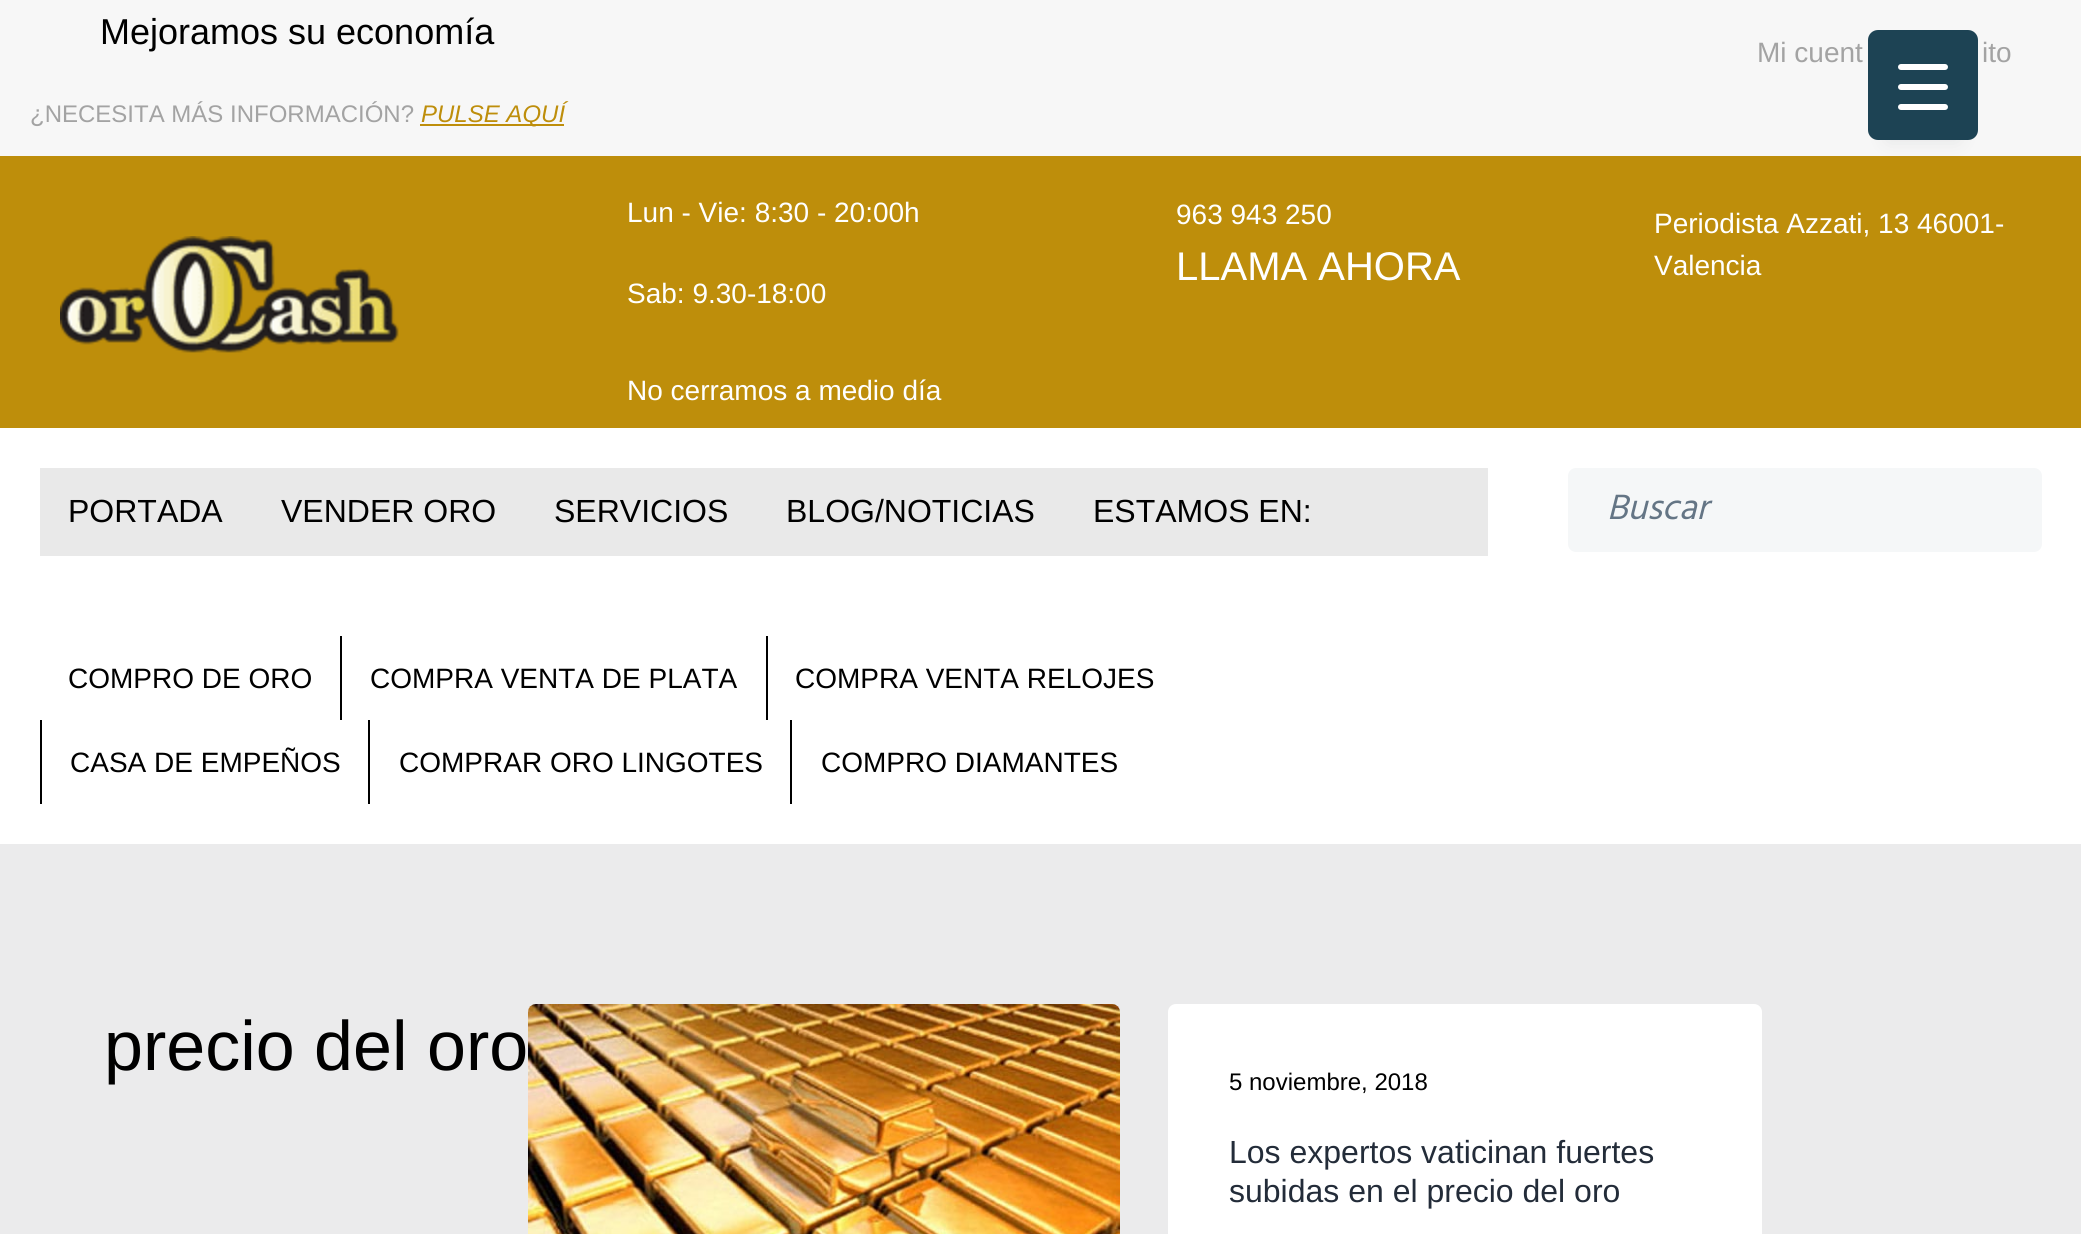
#include <cairo.h>
#include <math.h>
#include <stddef.h>


static void set_color(cairo_t *cr, unsigned color) {
    cairo_set_source_rgb(cr, (color >> 16) / 255.0, (color >> 8 & 255) / 255.0, (color & 255) / 255.0);
}

static void draw_text(cairo_t *cr, double x, double y, const char *s, const char *family, double size, int italic, int bold, unsigned color) {
    cairo_select_font_face(cr, family, italic ? CAIRO_FONT_SLANT_ITALIC : CAIRO_FONT_SLANT_NORMAL,
        bold ? CAIRO_FONT_WEIGHT_BOLD : CAIRO_FONT_WEIGHT_NORMAL);
    cairo_set_font_size(cr, size);
    set_color(cr, color);
    cairo_move_to(cr, x, y);
    cairo_show_text(cr, s);
}

static void fill_rect(cairo_t *cr, double x, double y, double w, double h, unsigned color) {
    set_color(cr, color);
    cairo_rectangle(cr, x, y, w, h);
    cairo_fill(cr);
}

static void rounded_rect(cairo_t *cr, double x, double y, double w, double h, double r) {
    cairo_new_sub_path(cr);
    cairo_arc(cr, x + w - r, y + h - r, r, 0, M_PI / 2);
    cairo_arc(cr, x + r, y + h - r, r, M_PI / 2, M_PI);
    cairo_arc(cr, x + r, y + r, r, M_PI, 1.5 * M_PI);
    cairo_arc(cr, x + w - r, y + r, r, 1.5 * M_PI, 2 * M_PI);
    cairo_close_path(cr);
}

static void draw_shadow(cairo_t *cr, double x, double y, double w, double h, double r, double blur, double alpha) {
    cairo_push_group_with_content(cr, CAIRO_CONTENT_ALPHA);
    cairo_set_operator(cr, CAIRO_OPERATOR_SOURCE);
    for (int i = 15; i >= -15 && fmin(w, h) + blur * i / 3 > 0; i -= 2) {
        double e = blur * i / 6;
        cairo_set_source_rgba(cr, 0, 0, 0, alpha * erfc((i - 1) / 8.5) / 2);
        rounded_rect(cr, x - e, y - e, w + 2 * e, h + 2 * e, fmax(0, fmin(r + e + blur * .6, fmin(w, h) / 2 + e)));
        cairo_fill(cr);
    }
    cairo_pattern_t *soft = cairo_pop_group(cr);
    cairo_mask(cr, soft);
    cairo_pattern_destroy(soft);
}

static void draw_image(cairo_t *cr, const char *path, double x, double y, double w, double h) {
    cairo_surface_t *image = cairo_image_surface_create_from_png(path);
    cairo_save(cr);
    cairo_set_source_surface(cr, image, x, y);
    cairo_rectangle(cr, x, y, w, h);
    cairo_fill(cr);
    cairo_restore(cr);
    cairo_surface_destroy(image);
}

int main(void) {
    cairo_surface_t *surface = cairo_image_surface_create(CAIRO_FORMAT_RGB24, 2081, 1234);
    cairo_t *cr = cairo_create(surface);
    cairo_font_options_t *options = cairo_font_options_create();
    cairo_font_options_set_hint_metrics(options, CAIRO_HINT_METRICS_OFF);
    cairo_font_options_set_hint_style(options, CAIRO_HINT_STYLE_NONE);
    cairo_set_font_options(cr, options);
    cairo_set_miter_limit(cr, 4);
    set_color(cr, 0xF7F7F7);
    cairo_paint(cr);
    draw_text(cr, 100, 44, "Mejoramos su economía", "Liberation Sans", 36, 0, 0, 0x000000);
    draw_text(cr, 1757, 62, "Mi cuent", "Liberation Sans", 28, 0, 0, 0xA3A3A3);
    draw_text(cr, 1982, 62, "ito", "Liberation Sans", 28, 0, 0, 0xA3A3A3);
    draw_text(cr, 30, 122, "¿NECESITA MÁS INFORMACIÓN?", "Liberation Sans", 24, 0, 0, 0xA3A3A3);
    fill_rect(cr, 420, 124, 144, 2, 0xBE8E0B);
    draw_text(cr, 421, 122, "PULSE AQUÍ", "Liberation Sans", 24, 1, 0, 0xBE8E0B);
    fill_rect(cr, 0, 156, 2081, 272, 0xBE8E0B);
    draw_image(cr, "assets/img1.png", 60, 236, 339, 117);
    draw_text(cr, 627, 222, "Lun - Vie: 8:30 - 20:00h", "Liberation Sans", 28, 0, 0, 0xFFFFFF);
    draw_text(cr, 627, 303, "Sab: 9.30-18:00", "Liberation Sans", 28, 0, 0, 0xFFFFFF);
    draw_text(cr, 627, 400, "No cerramos a medio día", "Liberation Sans", 28, 0, 0, 0xFFFFFF);
    draw_text(cr, 1176, 224, "963 943 250", "Liberation Sans", 28, 0, 0, 0xFFFFFF);
    draw_text(cr, 1176, 280, "LLAMA AHORA", "Liberation Sans", 40, 0, 0, 0xFFFFFF);
    draw_text(cr, 1654, 233, "Periodista Azzati, 13 46001-", "Liberation Sans", 28, 0, 0, 0xFFFFFF);
    draw_text(cr, 1654, 275, "Valencia", "Liberation Sans", 28, 0, 0, 0xFFFFFF);
    fill_rect(cr, 0, 428, 2081, 416, 0xFFFFFF);
    fill_rect(cr, 40, 468, 1448, 88, 0xE9E9E9);
    draw_text(cr, 68, 522, "PORTADA", "Liberation Sans", 32, 0, 0, 0x000000);
    draw_text(cr, 281, 522, "VENDER ORO", "Liberation Sans", 32, 0, 0, 0x000000);
    draw_text(cr, 554, 522, "SERVICIOS", "Liberation Sans", 32, 0, 0, 0x000000);
    draw_text(cr, 786, 522, "BLOG/NOTICIAS", "Liberation Sans", 32, 0, 0, 0x000000);
    draw_text(cr, 1093, 522, "ESTAMOS EN:", "Liberation Sans", 32, 0, 0, 0x000000);
    draw_text(cr, 68, 688, "COMPRO DE ORO", "Liberation Sans", 28, 0, 0, 0x000000);
    fill_rect(cr, 340, 636, 2, 84, 0x000000);
    draw_text(cr, 370, 688, "COMPRA VENTA DE PLATA", "Liberation Sans", 28, 0, 0, 0x000000);
    fill_rect(cr, 766, 636, 2, 84, 0x000000);
    draw_text(cr, 795, 688, "COMPRA VENTA RELOJES", "Liberation Sans", 28, 0, 0, 0x000000);
    fill_rect(cr, 40, 720, 2, 84, 0x000000);
    draw_text(cr, 70, 772, "CASA DE EMPEÑOS", "Liberation Sans", 28, 0, 0, 0x000000);
    fill_rect(cr, 368, 720, 2, 84, 0x000000);
    draw_text(cr, 399, 772, "COMPRAR ORO LINGOTES", "Liberation Sans", 28, 0, 0, 0x000000);
    fill_rect(cr, 790, 720, 2, 84, 0x000000);
    draw_text(cr, 821, 772, "COMPRO DIAMANTES", "Liberation Sans", 28, 0, 0, 0x000000);
    set_color(cr, 0xF5F7F8);
    rounded_rect(cr, 1568, 468, 474, 84, 8);
    cairo_fill(cr);
    draw_text(cr, 1607, 519, "Buscar", "Hind", 36, 1, 0, 0x647585);
    fill_rect(cr, 0, 844, 2081, 390, 0xEBEBEC);
    draw_text(cr, 104, 1070, "precio del oro", "Liberation Sans", 70, 0, 0, 0x000000);
    draw_image(cr, "assets/img2.png", 528, 1004, 592, 230);
    set_color(cr, 0xFFFFFF);
    rounded_rect(cr, 1168, 1004, 594, 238, 8);
    cairo_fill(cr);
    draw_text(cr, 1229, 1090, "5 noviembre, 2018", "Liberation Sans", 24, 0, 0, 0x000000);
    draw_text(cr, 1229, 1163, "Los expertos vaticinan fuertes", "Liberation Sans", 32, 0, 0, 0x232C39);
    draw_text(cr, 1229, 1202, "subidas en el precio del oro", "Liberation Sans", 32, 0, 0, 0x232C39);
    set_color(cr, 0x232C39);
    draw_shadow(cr, 1888, 70, 70, 70, 0, 10, 0.1);
    set_color(cr, 0x1D4354);
    rounded_rect(cr, 1868, 30, 110, 110, 10);
    cairo_fill(cr);
    set_color(cr, 0xFFFFFF);
    rounded_rect(cr, 1898, 84, 50, 6, 3);
    cairo_fill(cr);
    rounded_rect(cr, 1898, 64, 50, 6, 3);
    cairo_fill(cr);
    rounded_rect(cr, 1898, 104, 50, 6, 3);
    cairo_fill(cr);
    cairo_surface_write_to_png(surface, "output.png");
    cairo_font_options_destroy(options);
    cairo_destroy(cr);
    cairo_surface_destroy(surface);
    return 0;
}
